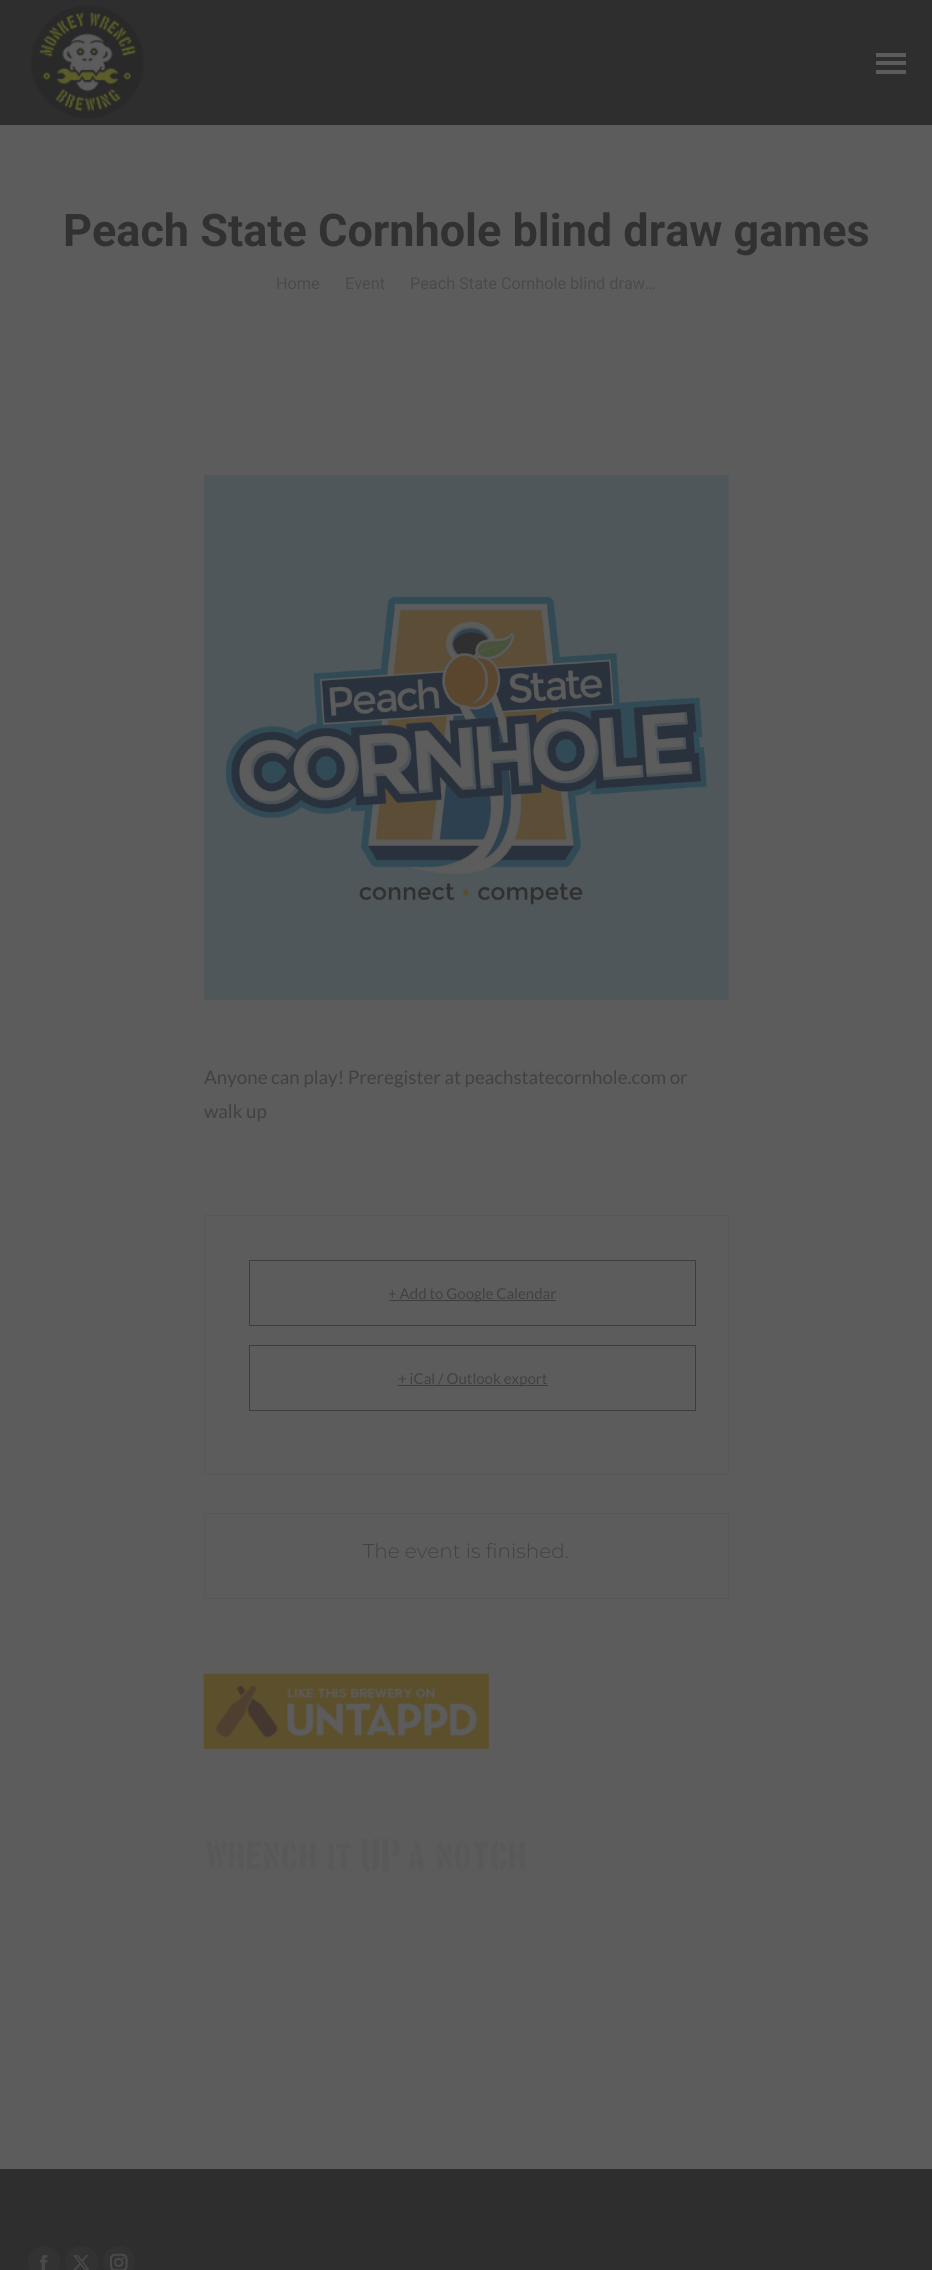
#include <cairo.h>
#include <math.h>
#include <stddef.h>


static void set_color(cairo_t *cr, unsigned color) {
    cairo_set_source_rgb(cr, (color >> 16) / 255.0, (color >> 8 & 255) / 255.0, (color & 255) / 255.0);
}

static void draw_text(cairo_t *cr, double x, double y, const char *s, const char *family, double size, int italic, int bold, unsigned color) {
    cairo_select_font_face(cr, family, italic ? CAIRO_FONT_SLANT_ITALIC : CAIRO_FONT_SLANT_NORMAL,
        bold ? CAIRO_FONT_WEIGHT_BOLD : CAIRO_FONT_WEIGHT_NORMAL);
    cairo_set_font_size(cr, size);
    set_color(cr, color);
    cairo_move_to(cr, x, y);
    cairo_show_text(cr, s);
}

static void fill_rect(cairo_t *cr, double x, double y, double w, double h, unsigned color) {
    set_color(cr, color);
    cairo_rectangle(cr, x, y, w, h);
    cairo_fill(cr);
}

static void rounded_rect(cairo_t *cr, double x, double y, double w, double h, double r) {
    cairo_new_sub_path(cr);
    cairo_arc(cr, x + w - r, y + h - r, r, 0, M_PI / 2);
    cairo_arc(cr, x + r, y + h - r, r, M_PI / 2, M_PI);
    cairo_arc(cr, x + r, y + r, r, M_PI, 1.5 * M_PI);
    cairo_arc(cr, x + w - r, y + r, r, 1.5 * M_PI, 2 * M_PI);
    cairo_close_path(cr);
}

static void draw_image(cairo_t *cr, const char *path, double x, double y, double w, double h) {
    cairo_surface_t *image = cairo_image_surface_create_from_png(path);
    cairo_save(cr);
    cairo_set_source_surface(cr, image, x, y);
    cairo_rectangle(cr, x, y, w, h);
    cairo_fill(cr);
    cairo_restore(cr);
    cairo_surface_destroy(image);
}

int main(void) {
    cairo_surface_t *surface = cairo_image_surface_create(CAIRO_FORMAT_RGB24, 932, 2270);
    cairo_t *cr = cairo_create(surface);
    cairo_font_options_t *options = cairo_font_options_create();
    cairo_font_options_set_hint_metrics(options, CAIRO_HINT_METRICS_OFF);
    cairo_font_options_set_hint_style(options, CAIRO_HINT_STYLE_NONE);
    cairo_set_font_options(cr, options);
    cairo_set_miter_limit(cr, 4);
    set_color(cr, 0x5C5C5C);
    cairo_paint(cr);
    fill_rect(cr, 0, 0, 932, 125, 0x2E2E2E);
    draw_image(cr, "assets/img1.png", 31, 5, 113, 114);
    fill_rect(cr, 876, 53, 30, 4, 0x5C5C5C);
    fill_rect(cr, 876, 61, 30, 4, 0x5C5C5C);
    fill_rect(cr, 876, 70, 30, 4, 0x5C5C5C);
    draw_text(cr, 63, 246, "Peach State Cornhole blind draw games", "Roboto", 45, 0, 1, 0x313132);
    draw_text(cr, 276, 289, "Home", "Roboto", 16.25, 0, 0, 0x4A4A4C);
    draw_text(cr, 345, 289, "Event", "Roboto", 16.25, 0, 0, 0x4A4A4C);
    draw_text(cr, 410, 289, "Peach State Cornhole blind draw…", "Roboto", 16.25, 0, 0, 0x4A4A4C);
    draw_image(cr, "assets/img2.png", 203, 475, 526, 525);
    draw_text(cr, 204, 1084, "Anyone can play! Preregister at peachstatecornhole.com or", "Lato", 18.75, 0, 0, 0x404142);
    draw_text(cr, 204, 1118, "walk up", "Lato", 18.75, 0, 0, 0x404142);
    cairo_rectangle(cr, 204.5, 1215.5, 524, 259);
    set_color(cr, 0x575757);
    cairo_set_line_width(cr, 1);
    cairo_stroke(cr);
    cairo_rectangle(cr, 249.5, 1260.5, 446, 65);
    set_color(cr, 0x3D3D3D);
    cairo_stroke(cr);
    fill_rect(cr, 389, 1300, 167, 1, 0x3D3D3D);
    draw_text(cr, 388, 1299, "+ Add to Google Calendar", "Lato", 15, 0, 0, 0x404142);
    cairo_rectangle(cr, 249.5, 1345.5, 446, 65);
    set_color(cr, 0x3D3D3D);
    cairo_stroke(cr);
    fill_rect(cr, 398, 1385, 150, 1, 0x3D3D3D);
    draw_text(cr, 398, 1384, "+ iCal / Outlook export", "Lato", 15, 0, 0, 0x404142);
    cairo_rectangle(cr, 204.5, 1513.5, 524, 85);
    set_color(cr, 0x575757);
    cairo_stroke(cr);
    draw_text(cr, 363, 1558, "The event is finished.", "Montserrat Light", 20, 0, 0, 0x404142);
    draw_image(cr, "assets/img3.png", 203, 1673, 286, 76);
    draw_image(cr, "assets/img4.png", 205, 1838, 321, 34);
    fill_rect(cr, 0, 2169, 932, 101, 0x2E2E2E);
    set_color(cr, 0x323232);
    rounded_rect(cr, 28, 2246, 32, 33, 16);
    cairo_fill(cr);
    draw_image(cr, "assets/img5.png", 40, 2255, 8, 15);
    cairo_arc(cr, 81.5, 2262.5, 16.5, 0, 2 * M_PI);
    cairo_fill(cr);
    draw_image(cr, "assets/img6.png", 73, 2255, 17, 15);
    rounded_rect(cr, 103, 2246, 32, 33, 16);
    cairo_fill(cr);
    draw_image(cr, "assets/img7.png", 110, 2253, 18, 17);
    cairo_surface_write_to_png(surface, "output.png");
    cairo_font_options_destroy(options);
    cairo_destroy(cr);
    cairo_surface_destroy(surface);
    return 0;
}
